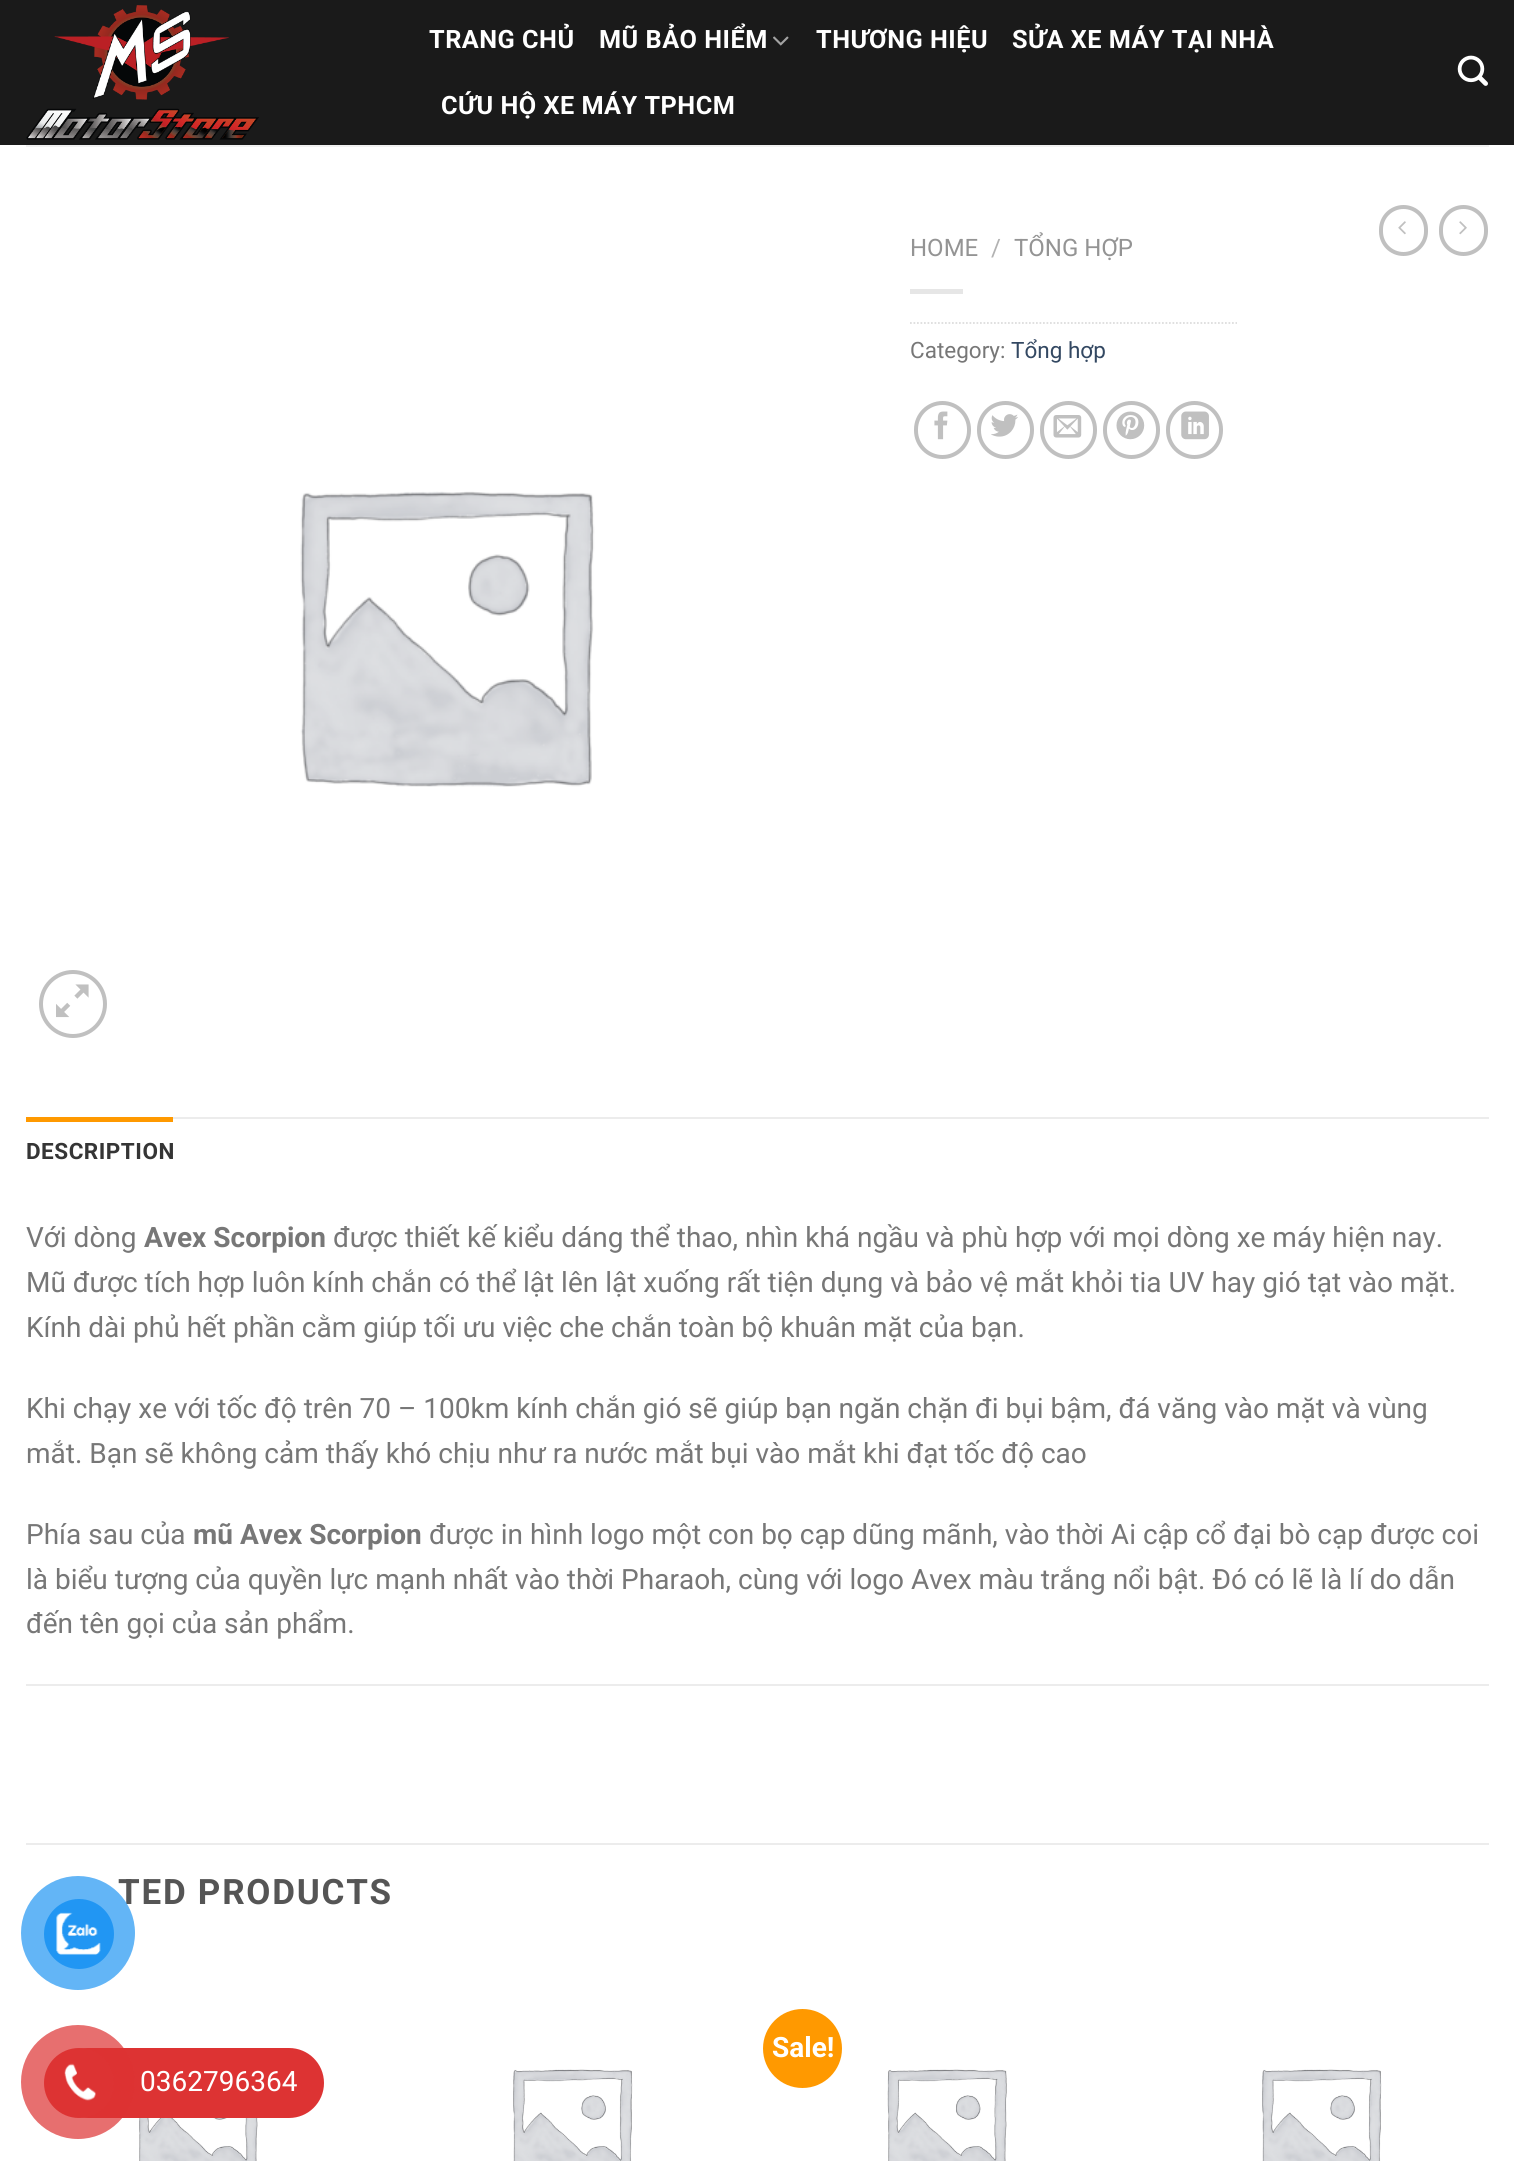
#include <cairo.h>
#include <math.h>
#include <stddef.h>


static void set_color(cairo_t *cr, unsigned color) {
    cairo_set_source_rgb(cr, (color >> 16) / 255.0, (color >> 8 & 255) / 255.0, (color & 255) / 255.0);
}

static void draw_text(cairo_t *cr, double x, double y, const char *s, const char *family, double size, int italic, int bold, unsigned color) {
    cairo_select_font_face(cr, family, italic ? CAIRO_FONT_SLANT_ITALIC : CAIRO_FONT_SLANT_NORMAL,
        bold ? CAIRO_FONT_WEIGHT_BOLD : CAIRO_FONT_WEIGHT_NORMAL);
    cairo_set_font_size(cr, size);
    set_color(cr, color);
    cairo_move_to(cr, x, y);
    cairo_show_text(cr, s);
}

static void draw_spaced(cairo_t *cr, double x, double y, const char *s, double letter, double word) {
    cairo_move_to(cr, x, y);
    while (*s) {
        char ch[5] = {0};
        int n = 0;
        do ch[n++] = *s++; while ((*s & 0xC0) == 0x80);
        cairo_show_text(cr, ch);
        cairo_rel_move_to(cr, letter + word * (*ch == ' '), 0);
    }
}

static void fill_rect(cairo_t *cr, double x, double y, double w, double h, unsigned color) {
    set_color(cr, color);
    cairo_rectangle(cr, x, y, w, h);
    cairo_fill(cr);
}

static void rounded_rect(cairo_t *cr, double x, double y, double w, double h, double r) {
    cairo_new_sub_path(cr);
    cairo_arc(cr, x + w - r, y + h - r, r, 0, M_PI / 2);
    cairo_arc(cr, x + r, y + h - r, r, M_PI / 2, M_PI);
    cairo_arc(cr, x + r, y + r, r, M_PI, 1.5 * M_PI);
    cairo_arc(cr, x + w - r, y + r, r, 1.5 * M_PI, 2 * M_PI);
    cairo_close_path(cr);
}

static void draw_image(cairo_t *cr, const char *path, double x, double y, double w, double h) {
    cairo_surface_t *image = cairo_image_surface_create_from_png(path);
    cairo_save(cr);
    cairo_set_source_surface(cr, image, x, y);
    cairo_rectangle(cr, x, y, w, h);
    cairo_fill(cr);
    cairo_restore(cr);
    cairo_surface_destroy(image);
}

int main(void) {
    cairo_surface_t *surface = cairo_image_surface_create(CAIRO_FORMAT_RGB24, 1514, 2161);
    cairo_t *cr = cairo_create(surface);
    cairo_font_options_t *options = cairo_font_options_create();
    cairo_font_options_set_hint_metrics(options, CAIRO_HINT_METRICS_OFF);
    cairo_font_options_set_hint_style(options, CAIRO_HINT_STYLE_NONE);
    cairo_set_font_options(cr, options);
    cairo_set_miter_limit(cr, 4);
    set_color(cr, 0xFFFFFF);
    cairo_paint(cr);
    fill_rect(cr, 0, 0, 1514, 145, 0x1A1A1A);
    draw_image(cr, "assets/img1.png", 26, 5, 233, 135);
    cairo_select_font_face(cr, "Roboto", CAIRO_FONT_SLANT_NORMAL, CAIRO_FONT_WEIGHT_BOLD);
    cairo_set_font_size(cr, 25.25);
    set_color(cr, 0xFFFFFF);
    draw_spaced(cr, 429, 48, "TRANG CHỦ", 0.5, 0);
    draw_spaced(cr, 599, 48, "MŨ BẢO HIỂM", 0.5, 0);
    draw_image(cr, "assets/img2.png", 773, 36, 16, 10);
    draw_spaced(cr, 816, 48, "THƯƠNG HIỆU", 0.5, 0);
    draw_spaced(cr, 1012, 48, "SỬA XE MÁY TẠI NHÀ", 0.5, 0);
    draw_spaced(cr, 441, 114, "CỨU HỘ XE MÁY TPHCM", 0.5, 0);
    draw_image(cr, "assets/img3.png", 1457, 55, 31, 31);
    fill_rect(cr, 26, 145, 1463, 2, 0xF1F1F1);
    draw_text(cr, 910, 256, "HOME", "Roboto", 24, 0, 0, 0x949494);
    draw_text(cr, 991, 256, "/", "Roboto", 24, 0, 0, 0xB2B2B2);
    draw_text(cr, 1014, 256, "TỔNG HỢP", "Roboto", 24, 0, 0, 0x949494);
    fill_rect(cr, 910, 289, 53, 5, 0xE6E6E6);
    cairo_new_path(cr);
    cairo_move_to(cr, 910, 323);
    cairo_line_to(cr, 1237, 323);
    set_color(cr, 0xDDDDDD);
    cairo_set_line_width(cr, 1.8);
    cairo_set_dash(cr, (double[]){1.75, 1.75}, 2, 0);
    cairo_stroke(cr);
    draw_text(cr, 910, 358, "Category:", "Roboto", 22.5, 0, 0, 0x777777);
    draw_text(cr, 1011, 358, "Tổng hợp", "Roboto", 22.5, 0, 0, 0x334862);
    rounded_rect(cr, 916, 403, 53, 54, 26.5);
    set_color(cr, 0xC0C0C0);
    cairo_set_line_width(cr, 4);
    cairo_set_dash(cr, NULL, 0, 0);
    cairo_stroke(cr);
    draw_image(cr, "assets/img4.png", 934, 411, 14, 29);
    rounded_rect(cr, 979, 403, 53, 54, 26.5);
    cairo_stroke(cr);
    draw_image(cr, "assets/img5.png", 991, 414, 27, 23);
    rounded_rect(cr, 1042, 403, 53, 54, 26.5);
    cairo_stroke(cr);
    draw_image(cr, "assets/img6.png", 1053, 415, 29, 23);
    rounded_rect(cr, 1105, 403, 53, 54, 26.5);
    cairo_stroke(cr);
    draw_image(cr, "assets/img7.png", 1116, 411, 29, 29);
    rounded_rect(cr, 1168, 403, 53, 54, 26.5);
    cairo_stroke(cr);
    draw_image(cr, "assets/img8.png", 1181, 411, 28, 29);
    rounded_rect(cr, 1381, 207, 45, 47, 22.5);
    cairo_stroke(cr);
    draw_image(cr, "assets/img9.png", 1398, 221, 8, 14);
    rounded_rect(cr, 1441, 207, 45, 47, 22.5);
    cairo_stroke(cr);
    draw_image(cr, "assets/img10.png", 1459, 221, 8, 14);
    draw_image(cr, "assets/img11.png", 300, 491, 295, 296);
    cairo_arc(cr, 73, 1004, 32, 0, 2 * M_PI);
    cairo_stroke(cr);
    draw_image(cr, "assets/img12.png", 56, 984, 33, 34);
    fill_rect(cr, 173, 1117, 1316, 2, 0xECECEC);
    fill_rect(cr, 26, 1117, 147, 5, 0xFF9900);
    cairo_select_font_face(cr, "Roboto", CAIRO_FONT_SLANT_NORMAL, CAIRO_FONT_WEIGHT_BOLD);
    set_color(cr, 0x353535);
    draw_spaced(cr, 26, 1159, "DESCRIPTION", 0.5, 0);
    draw_text(cr, 26, 1247, "Với dòng", "Roboto", 28, 0, 0, 0x777777);
    draw_text(cr, 144, 1247, "Avex Scorpion", "Roboto", 28, 0, 1, 0x777777);
    draw_text(cr, 333, 1247, "được thiết kế kiểu dáng thể thao, nhìn khá ngầu và phù hợp với mọi dòng xe máy hiện nay.", "Roboto", 28, 0, 0, 0x777777);
    draw_text(cr, 26, 1292, "Mũ được tích hợp luôn kính chắn có thể lật lên lật xuống rất tiện dụng và bảo vệ mắt khỏi tia UV hay gió tạt vào mặt.", "Roboto", 28, 0, 0, 0x777777);
    draw_text(cr, 26, 1337, "Kính dài phủ hết phần cằm giúp tối ưu việc che chắn toàn bộ khuân mặt của bạn.", "Roboto", 28, 0, 0, 0x777777);
    draw_text(cr, 26, 1418, "Khi chạy xe với tốc độ trên 70 – 100km kính chắn gió sẽ giúp bạn ngăn chặn đi bụi bậm, đá văng vào mặt và vùng", "Roboto", 28, 0, 0, 0x777777);
    draw_text(cr, 26, 1463, "mắt. Bạn sẽ không cảm thấy khó chịu như ra nước mắt bụi vào mắt khi đạt tốc độ cao", "Roboto", 28, 0, 0, 0x777777);
    draw_text(cr, 26, 1544, "Phía sau của", "Roboto", 28, 0, 0, 0x777777);
    draw_text(cr, 193, 1544, "mũ Avex Scorpion", "Roboto", 28, 0, 1, 0x777777);
    draw_text(cr, 429, 1544, "được in hình logo một con bọ cạp dũng mãnh, vào thời Ai cập cổ đại bò cạp được coi", "Roboto", 28, 0, 0, 0x777777);
    draw_text(cr, 26, 1589, "là biểu tượng của quyền lực mạnh nhất vào thời Pharaoh, cùng với logo Avex màu trắng nổi bật. Đó có lẽ là lí do dẫn", "Roboto", 28, 0, 0, 0x777777);
    draw_text(cr, 26, 1633, "đến tên gọi của sản phẩm.", "Roboto", 28, 0, 0, 0x777777);
    fill_rect(cr, 26, 1684, 1463, 2, 0xECECEC);
    fill_rect(cr, 26, 1843, 1463, 2, 0xECECEC);
    cairo_select_font_face(cr, "Roboto", CAIRO_FONT_SLANT_NORMAL, CAIRO_FONT_WEIGHT_BOLD);
    cairo_set_font_size(cr, 35);
    set_color(cr, 0x555555);
    draw_spaced(cr, 118, 1904, "TED PRODUCTS", 1.75, 0);
    set_color(cr, 0xFF9900);
    cairo_new_path(cr);
    cairo_arc(cr, 802.5, 2048.5, 39.5, 0, 2 * M_PI);
    cairo_fill(cr);
    draw_text(cr, 772, 2057, "Sale!", "Roboto", 28, 0, 1, 0xFFFFFF);
    draw_image(cr, "assets/img13.png", 887, 2069, 120, 92);
    draw_image(cr, "assets/img14.png", 138, 2118, 120, 43);
    draw_image(cr, "assets/img15.png", 513, 2069, 120, 92);
    draw_image(cr, "assets/img15.png", 1262, 2069, 120, 92);
    cairo_set_source_rgba(cr, 0.129, 0.588, 0.953, 0.7);
    cairo_arc(cr, 78, 1933, 57, 0, 2 * M_PI);
    cairo_fill(cr);
    set_color(cr, 0x2196F3);
    cairo_arc(cr, 79, 1934, 35, 0, 2 * M_PI);
    cairo_fill(cr);
    draw_image(cr, "assets/img16.png", 56, 1912, 45, 43);
    set_color(cr, 0xDD3333);
    rounded_rect(cr, 53, 2048, 271, 70, 35);
    cairo_fill(cr);
    cairo_set_source_rgba(cr, 0.867, 0.2, 0.2, 0.7);
    cairo_arc(cr, 78, 2082, 57, 0, 2 * M_PI);
    cairo_fill(cr);
    set_color(cr, 0xDD3333);
    cairo_arc(cr, 79, 2083, 35, 0, 2 * M_PI);
    cairo_fill(cr);
    draw_image(cr, "assets/img17.png", 64, 2063, 32, 38);
    draw_text(cr, 140, 2091, "0362796364", "Roboto", 28, 0, 0, 0xFFFFFF);
    cairo_surface_write_to_png(surface, "output.png");
    cairo_font_options_destroy(options);
    cairo_destroy(cr);
    cairo_surface_destroy(surface);
    return 0;
}
